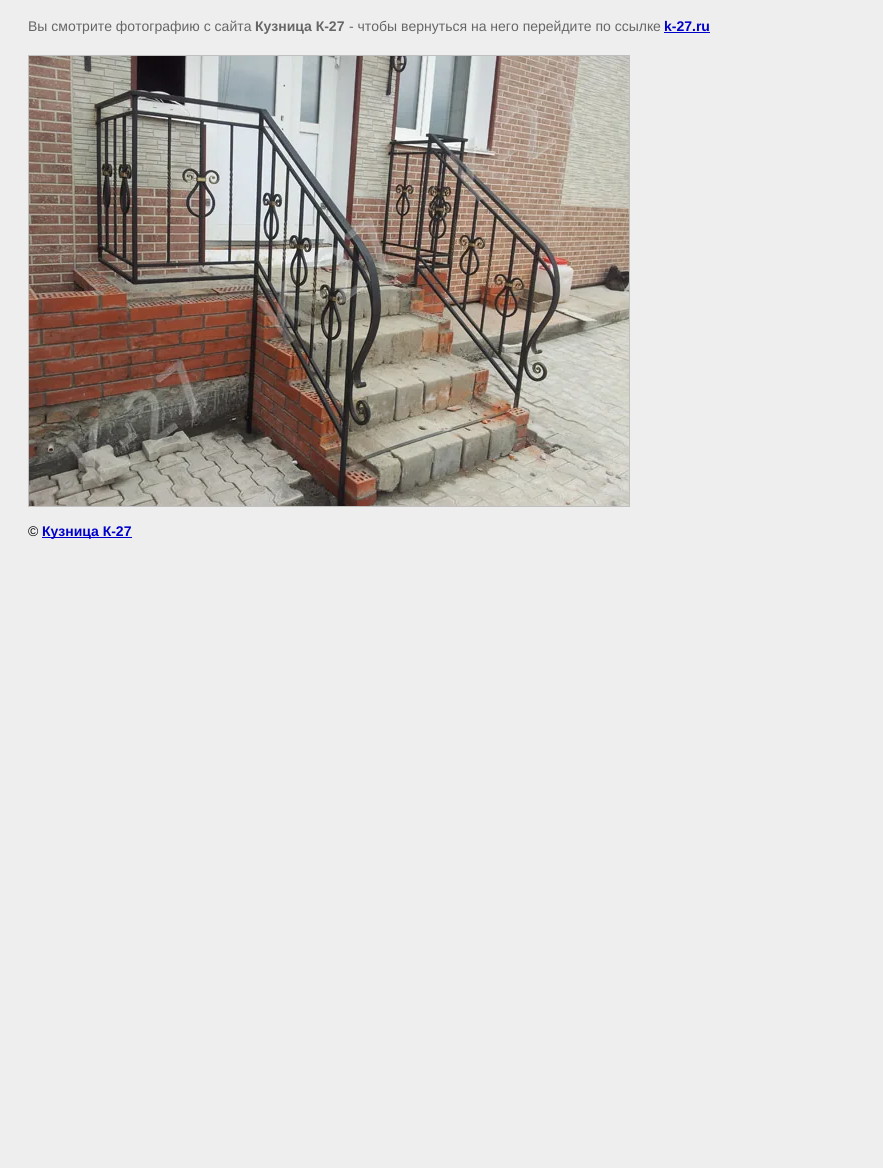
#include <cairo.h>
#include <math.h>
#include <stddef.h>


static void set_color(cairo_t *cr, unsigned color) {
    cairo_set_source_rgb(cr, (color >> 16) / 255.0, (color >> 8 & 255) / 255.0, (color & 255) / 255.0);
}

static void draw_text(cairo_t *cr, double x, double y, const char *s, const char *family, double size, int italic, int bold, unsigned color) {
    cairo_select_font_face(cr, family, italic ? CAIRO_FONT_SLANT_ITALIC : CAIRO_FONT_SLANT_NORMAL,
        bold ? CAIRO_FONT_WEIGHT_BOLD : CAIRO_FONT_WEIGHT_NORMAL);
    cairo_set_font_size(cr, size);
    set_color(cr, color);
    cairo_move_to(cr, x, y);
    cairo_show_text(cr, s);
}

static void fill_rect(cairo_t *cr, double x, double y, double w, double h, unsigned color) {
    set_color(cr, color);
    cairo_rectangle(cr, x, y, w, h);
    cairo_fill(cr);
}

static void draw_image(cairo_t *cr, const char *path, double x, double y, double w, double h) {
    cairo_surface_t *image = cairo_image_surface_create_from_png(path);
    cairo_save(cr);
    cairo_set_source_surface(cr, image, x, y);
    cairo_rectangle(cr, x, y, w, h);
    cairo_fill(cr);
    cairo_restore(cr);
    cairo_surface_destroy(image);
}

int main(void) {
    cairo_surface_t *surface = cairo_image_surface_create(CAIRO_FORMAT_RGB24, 883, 1168);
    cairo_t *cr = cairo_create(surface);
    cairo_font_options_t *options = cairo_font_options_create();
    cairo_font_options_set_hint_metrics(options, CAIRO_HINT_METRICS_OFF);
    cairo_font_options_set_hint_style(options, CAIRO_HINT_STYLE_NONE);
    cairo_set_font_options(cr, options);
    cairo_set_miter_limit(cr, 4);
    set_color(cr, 0xEEEEEE);
    cairo_paint(cr);
    draw_text(cr, 28, 31, "Вы смотрите фотографию с сайта", "Liberation Sans", 14, 0, 0, 0x666666);
    draw_text(cr, 255, 31, "Кузница К-27", "Liberation Sans", 14, 0, 1, 0x666666);
    draw_text(cr, 349, 31, "- чтобы вернуться на него перейдите по ссылке", "Liberation Sans", 14, 0, 0, 0x666666);
    draw_text(cr, 664, 31, "k-27.ru", "Liberation Sans", 14, 0, 1, 0x0000CC);
    fill_rect(cr, 664, 32, 46, 1, 0x0000CC);
    cairo_rectangle(cr, 28.5, 55.5, 601, 451);
    set_color(cr, 0xC0C0C0);
    cairo_set_line_width(cr, 1);
    cairo_stroke(cr);
    draw_image(cr, "assets/img1.png", 29, 56, 600, 450);
    draw_text(cr, 28, 536, "©", "Liberation Sans", 14, 0, 0, 0x000000);
    fill_rect(cr, 42, 537, 90, 1, 0x0000CC);
    draw_text(cr, 42, 536, "Кузница К-27", "Liberation Sans", 14, 0, 1, 0x0000CC);
    cairo_surface_write_to_png(surface, "output.png");
    cairo_font_options_destroy(options);
    cairo_destroy(cr);
    cairo_surface_destroy(surface);
    return 0;
}
